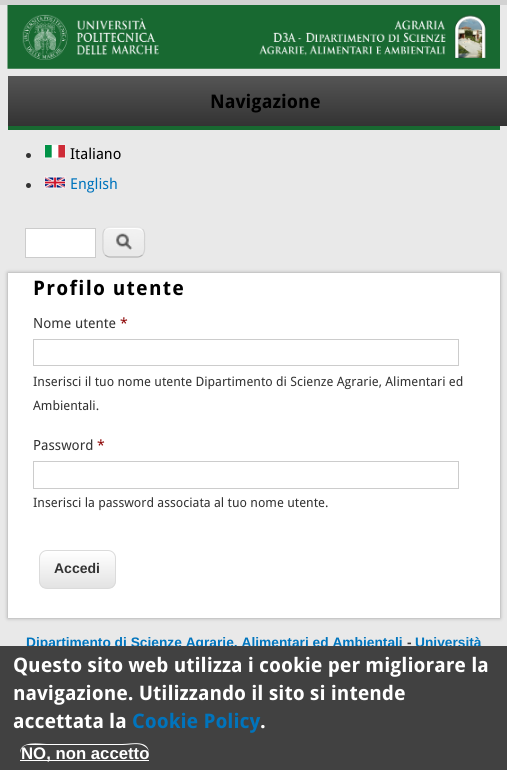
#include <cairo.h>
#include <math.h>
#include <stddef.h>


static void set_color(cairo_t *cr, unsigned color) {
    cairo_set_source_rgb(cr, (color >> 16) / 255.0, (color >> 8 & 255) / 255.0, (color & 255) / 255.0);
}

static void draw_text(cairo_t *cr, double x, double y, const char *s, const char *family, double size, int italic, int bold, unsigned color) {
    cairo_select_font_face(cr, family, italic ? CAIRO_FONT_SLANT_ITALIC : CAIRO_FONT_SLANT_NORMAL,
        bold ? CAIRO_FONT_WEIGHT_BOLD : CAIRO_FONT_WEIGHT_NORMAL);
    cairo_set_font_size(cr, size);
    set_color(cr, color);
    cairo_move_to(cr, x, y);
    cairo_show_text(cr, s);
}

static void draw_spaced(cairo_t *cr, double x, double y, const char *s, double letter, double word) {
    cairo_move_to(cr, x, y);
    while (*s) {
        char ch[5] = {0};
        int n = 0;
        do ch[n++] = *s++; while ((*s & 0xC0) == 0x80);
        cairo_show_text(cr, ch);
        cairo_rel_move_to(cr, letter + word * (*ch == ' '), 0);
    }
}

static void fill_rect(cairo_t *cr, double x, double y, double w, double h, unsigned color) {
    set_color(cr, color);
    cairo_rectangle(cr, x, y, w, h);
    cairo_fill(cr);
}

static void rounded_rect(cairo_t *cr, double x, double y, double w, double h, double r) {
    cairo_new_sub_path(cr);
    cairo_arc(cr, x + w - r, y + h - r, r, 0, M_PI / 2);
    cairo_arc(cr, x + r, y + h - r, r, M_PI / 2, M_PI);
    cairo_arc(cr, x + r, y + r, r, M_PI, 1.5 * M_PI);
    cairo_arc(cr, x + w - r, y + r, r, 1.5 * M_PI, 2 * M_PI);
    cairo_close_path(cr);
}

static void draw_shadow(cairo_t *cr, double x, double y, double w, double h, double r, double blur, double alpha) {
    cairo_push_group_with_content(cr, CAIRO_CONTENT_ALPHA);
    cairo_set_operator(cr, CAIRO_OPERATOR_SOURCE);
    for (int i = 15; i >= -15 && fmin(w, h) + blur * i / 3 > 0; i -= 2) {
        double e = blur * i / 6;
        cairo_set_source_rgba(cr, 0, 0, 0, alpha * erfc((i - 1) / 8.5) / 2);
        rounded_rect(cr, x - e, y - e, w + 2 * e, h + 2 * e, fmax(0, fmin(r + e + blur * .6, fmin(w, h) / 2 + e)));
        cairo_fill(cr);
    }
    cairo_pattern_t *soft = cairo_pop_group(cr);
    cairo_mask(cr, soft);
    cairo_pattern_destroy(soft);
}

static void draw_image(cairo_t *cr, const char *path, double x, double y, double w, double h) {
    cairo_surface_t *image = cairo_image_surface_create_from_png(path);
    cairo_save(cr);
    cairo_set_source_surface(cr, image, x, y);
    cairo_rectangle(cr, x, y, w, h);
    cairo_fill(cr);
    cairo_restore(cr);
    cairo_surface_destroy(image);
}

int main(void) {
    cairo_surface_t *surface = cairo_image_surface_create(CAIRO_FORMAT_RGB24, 507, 770);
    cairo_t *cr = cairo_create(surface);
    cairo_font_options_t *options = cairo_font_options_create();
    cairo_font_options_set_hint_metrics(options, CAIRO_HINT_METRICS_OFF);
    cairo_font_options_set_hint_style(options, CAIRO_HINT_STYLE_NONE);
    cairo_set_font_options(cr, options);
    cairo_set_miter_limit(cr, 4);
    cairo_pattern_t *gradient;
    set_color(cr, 0xD2D2D2);
    cairo_paint(cr);
    fill_rect(cr, 0, 5, 507, 641, 0xE9E9E9);
    draw_image(cr, "assets/img1.png", 7, 5, 493, 64);
    fill_rect(cr, 8, 126, 492, 4, 0x186931);
    gradient = cairo_pattern_create_linear(265, 76, 265, 126);
    cairo_pattern_add_color_stop_rgba(gradient, 0, 0.333, 0.333, 0.333, 1);
    cairo_pattern_add_color_stop_rgba(gradient, 1, 0.2, 0.2, 0.2, 1);
    cairo_set_source(cr, gradient);
    cairo_pattern_destroy(gradient);
    cairo_rectangle(cr, 8, 76, 499, 50);
    cairo_fill(cr);
    draw_text(cr, 210, 108, "Navigazione", "Droid Sans", 18.75, 0, 1, 0x000000);
    set_color(cr, 0x333333);
    cairo_new_path(cr);
    cairo_arc(cr, 28.5, 155.5, 2.5, 0, 2 * M_PI);
    cairo_fill(cr);
    fill_rect(cr, 45, 157, 20, 1, 0xFFFFFF);
    cairo_rectangle(cr, 44.5, 144.5, 21, 14);
    set_color(cr, 0xEEEEEE);
    cairo_set_line_width(cr, 1);
    cairo_stroke(cr);
    draw_image(cr, "assets/img2.png", 45, 145, 20, 13);
    draw_text(cr, 70, 159, "Italiano", "Droid Sans", 15, 0, 0, 0x000000);
    set_color(cr, 0x333333);
    cairo_new_path(cr);
    cairo_arc(cr, 28.5, 185.5, 2.5, 0, 2 * M_PI);
    cairo_fill(cr);
    set_color(cr, 0xFFFFFF);
    cairo_rectangle(cr, 44.5, 176.5, 21, 12);
    cairo_fill_preserve(cr);
    set_color(cr, 0xEEEEEE);
    cairo_stroke(cr);
    draw_image(cr, "assets/img3.png", 45, 177, 20, 11);
    draw_text(cr, 70, 189, "English", "Droid Sans", 15, 0, 0, 0x0074BD);
    set_color(cr, 0xFFFFFF);
    cairo_rectangle(cr, 25.5, 228.5, 70, 29);
    cairo_fill_preserve(cr);
    set_color(cr, 0xCCCCCC);
    cairo_stroke(cr);
    draw_image(cr, "assets/img4.png", 103, 227, 42, 23);
    set_color(cr, 0xFFFFFF);
    cairo_set_fill_rule(cr, CAIRO_FILL_RULE_EVEN_ODD);
    cairo_new_path(cr);
    cairo_move_to(cr, 110, 229);
    cairo_line_to(cr, 133, 229);
    cairo_curve_to(cr, 142, 229, 144, 231, 144, 237);
    cairo_curve_to(cr, 144, 229, 141, 228, 133, 228);
    cairo_line_to(cr, 115, 228);
    cairo_curve_to(cr, 110, 228, 104, 228, 104, 234);
    cairo_curve_to(cr, 104, 231, 106, 229, 110, 229);
    cairo_close_path(cr);
    cairo_move_to(cr, 144, 249);
    cairo_line_to(cr, 144, 251);
    cairo_close_path(cr);
    cairo_fill(cr);
    cairo_new_path(cr);
    cairo_move_to(cr, 105, 229);
    cairo_curve_to(cr, 106.5, 227.5, 108, 227, 110, 227);
    cairo_line_to(cr, 137.5, 227);
    cairo_curve_to(cr, 139.5, 227, 141, 227.5, 142.5, 229);
    set_color(cr, 0xE4E4E4);
    cairo_set_line_width(cr, 1.2);
    cairo_stroke(cr);
    cairo_new_path(cr);
    cairo_move_to(cr, 142.5, 229);
    cairo_curve_to(cr, 145.5, 232, 144.5, 238, 144.5, 242);
    cairo_curve_to(cr, 144.5, 246, 145.5, 251.5, 142.5, 255);
    set_color(cr, 0xD2D2D2);
    cairo_stroke(cr);
    cairo_new_path(cr);
    cairo_move_to(cr, 142.5, 255);
    cairo_curve_to(cr, 141, 256, 139.5, 257, 137.5, 257);
    cairo_line_to(cr, 110, 257);
    cairo_curve_to(cr, 108, 257, 106.5, 256, 105, 255);
    set_color(cr, 0xB4B4B4);
    cairo_stroke(cr);
    cairo_new_path(cr);
    cairo_move_to(cr, 105, 255);
    cairo_curve_to(cr, 102, 251.5, 103, 246, 103, 242);
    cairo_curve_to(cr, 103, 238, 102, 232, 105, 229);
    set_color(cr, 0xD2D2D2);
    cairo_stroke(cr);
    set_color(cr, 0x999999);
    draw_shadow(cr, 8, 273, 492, 345, 0, 2, 1);
    fill_rect(cr, 8, 273, 492, 345, 0xFFFFFF);
    cairo_select_font_face(cr, "Droid Sans", CAIRO_FONT_SLANT_NORMAL, CAIRO_FONT_WEIGHT_BOLD);
    cairo_set_font_size(cr, 20);
    set_color(cr, 0x000000);
    draw_spaced(cr, 33, 295, "Profilo utente", 1.25, 0);
    draw_text(cr, 33, 328, "Nome utente", "Droid Sans", 14, 0, 0, 0x333333);
    draw_text(cr, 120, 328, "*", "Droid Sans", 14, 0, 0, 0x8B0000);
    cairo_rectangle(cr, 33.5, 339.5, 425, 26);
    set_color(cr, 0xCCCCCC);
    cairo_set_line_width(cr, 1);
    cairo_stroke(cr);
    draw_text(cr, 33, 386, "Inserisci il tuo nome utente Dipartimento di Scienze Agrarie, Alimentari ed", "Droid Sans", 12.9, 0, 0, 0x333333);
    draw_text(cr, 33, 410, "Ambientali.", "Droid Sans", 12.9, 0, 0, 0x333333);
    draw_text(cr, 33, 450, "Password", "Droid Sans", 14, 0, 0, 0x333333);
    draw_text(cr, 97, 450, "*", "Droid Sans", 14, 0, 0, 0x8B0000);
    cairo_rectangle(cr, 33.5, 461.5, 425, 27);
    set_color(cr, 0xCCCCCC);
    cairo_stroke(cr);
    draw_text(cr, 33, 507, "Inserisci la password associata al tuo nome utente.", "Droid Sans", 12.9, 0, 0, 0x333333);
    cairo_save(cr);
    cairo_set_fill_rule(cr, CAIRO_FILL_RULE_WINDING);
    rounded_rect(cr, 39, 550, 77, 39, 8);
    cairo_clip(cr);
    gradient = cairo_pattern_create_linear(78, 551, 78, 588);
    cairo_pattern_add_color_stop_rgba(gradient, 0, 1, 1, 1, 1);
    cairo_pattern_add_color_stop_rgba(gradient, 1, 0.89, 0.89, 0.89, 1);
    cairo_set_source(cr, gradient);
    cairo_pattern_destroy(gradient);
    cairo_rectangle(cr, 39, 551, 77, 37);
    cairo_fill(cr);
    cairo_restore(cr);
    rounded_rect(cr, 39.5, 550.5, 76, 38, 7.5);
    set_color(cr, 0xDBDBDB);
    cairo_stroke(cr);
    draw_text(cr, 54, 573, "Accedi", "Liberation Sans", 14, 0, 1, 0x333333);
    draw_text(cr, 26, 647, "Dipartimento di Scienze Agrarie, Alimentari ed Ambientali", "Liberation Sans", 13.75, 0, 1, 0x0074BD);
    draw_text(cr, 407, 647, "-", "Liberation Sans", 13.75, 0, 1, 0x333333);
    draw_text(cr, 415, 647, "Università", "Liberation Sans", 13.75, 0, 1, 0x0074BD);
    fill_rect(cr, 0, 646, 507, 124, 0x414141);
    draw_text(cr, 13, 672, "Questo sito web utilizza i cookie per migliorare la", "Droid Sans", 20, 0, 1, 0xFFFFFF);
    draw_text(cr, 13, 700, "navigazione. Utilizzando il sito si intende", "Droid Sans", 20, 0, 1, 0xFFFFFF);
    draw_text(cr, 13, 728, "accettata la", "Droid Sans", 20, 0, 1, 0xFFFFFF);
    draw_text(cr, 132, 728, "Cookie Policy", "Droid Sans", 20, 0, 1, 0x0074BD);
    draw_text(cr, 260, 728, ".", "Droid Sans", 20, 0, 1, 0xFFFFFF);
    cairo_new_path(cr);
    cairo_move_to(cr, 28, 745);
    cairo_line_to(cr, 123, 745);
    cairo_curve_to(cr, 129, 745, 136, 743, 142, 745);
    cairo_curve_to(cr, 146, 747, 149, 749, 149, 754);
    cairo_curve_to(cr, 149, 739, 132, 744, 122, 744);
    cairo_line_to(cr, 47, 744);
    cairo_curve_to(cr, 40, 744, 20, 740, 20, 753);
    cairo_curve_to(cr, 21, 749, 23, 745, 28, 745);
    cairo_close_path(cr);
    cairo_move_to(cr, 149, 755);
    cairo_line_to(cr, 148, 758);
    cairo_close_path(cr);
    cairo_fill(cr);
    fill_rect(cr, 20, 760, 129, 1, 0xFFFFFF);
    draw_text(cr, 21, 759, "NO, non accetto", "Liberation Sans", 16.75, 0, 1, 0xFFFFFF);
    cairo_surface_write_to_png(surface, "output.png");
    cairo_font_options_destroy(options);
    cairo_destroy(cr);
    cairo_surface_destroy(surface);
    return 0;
}
